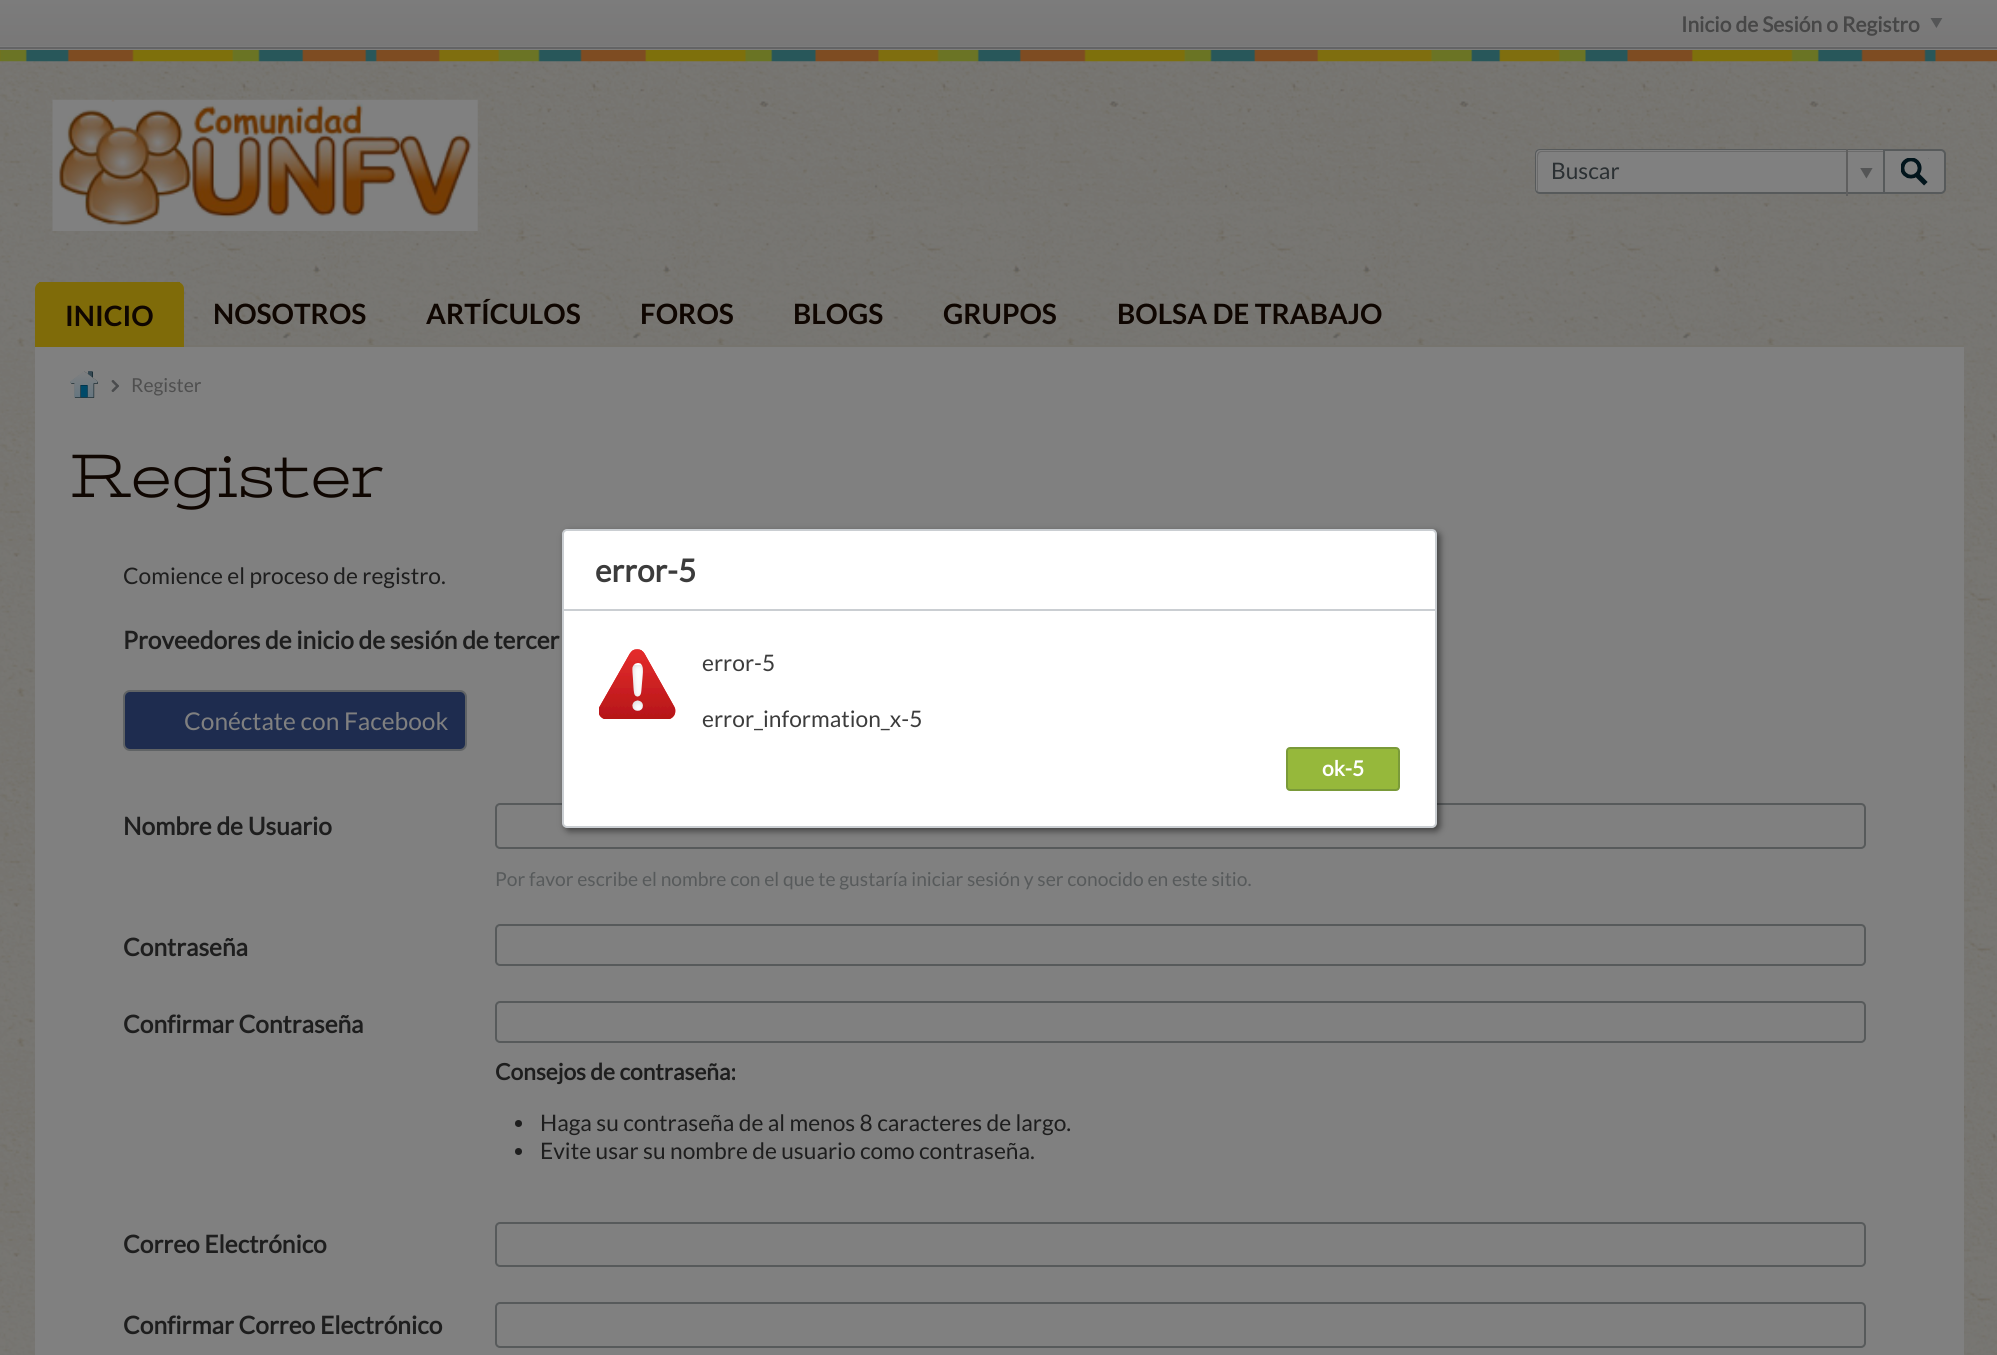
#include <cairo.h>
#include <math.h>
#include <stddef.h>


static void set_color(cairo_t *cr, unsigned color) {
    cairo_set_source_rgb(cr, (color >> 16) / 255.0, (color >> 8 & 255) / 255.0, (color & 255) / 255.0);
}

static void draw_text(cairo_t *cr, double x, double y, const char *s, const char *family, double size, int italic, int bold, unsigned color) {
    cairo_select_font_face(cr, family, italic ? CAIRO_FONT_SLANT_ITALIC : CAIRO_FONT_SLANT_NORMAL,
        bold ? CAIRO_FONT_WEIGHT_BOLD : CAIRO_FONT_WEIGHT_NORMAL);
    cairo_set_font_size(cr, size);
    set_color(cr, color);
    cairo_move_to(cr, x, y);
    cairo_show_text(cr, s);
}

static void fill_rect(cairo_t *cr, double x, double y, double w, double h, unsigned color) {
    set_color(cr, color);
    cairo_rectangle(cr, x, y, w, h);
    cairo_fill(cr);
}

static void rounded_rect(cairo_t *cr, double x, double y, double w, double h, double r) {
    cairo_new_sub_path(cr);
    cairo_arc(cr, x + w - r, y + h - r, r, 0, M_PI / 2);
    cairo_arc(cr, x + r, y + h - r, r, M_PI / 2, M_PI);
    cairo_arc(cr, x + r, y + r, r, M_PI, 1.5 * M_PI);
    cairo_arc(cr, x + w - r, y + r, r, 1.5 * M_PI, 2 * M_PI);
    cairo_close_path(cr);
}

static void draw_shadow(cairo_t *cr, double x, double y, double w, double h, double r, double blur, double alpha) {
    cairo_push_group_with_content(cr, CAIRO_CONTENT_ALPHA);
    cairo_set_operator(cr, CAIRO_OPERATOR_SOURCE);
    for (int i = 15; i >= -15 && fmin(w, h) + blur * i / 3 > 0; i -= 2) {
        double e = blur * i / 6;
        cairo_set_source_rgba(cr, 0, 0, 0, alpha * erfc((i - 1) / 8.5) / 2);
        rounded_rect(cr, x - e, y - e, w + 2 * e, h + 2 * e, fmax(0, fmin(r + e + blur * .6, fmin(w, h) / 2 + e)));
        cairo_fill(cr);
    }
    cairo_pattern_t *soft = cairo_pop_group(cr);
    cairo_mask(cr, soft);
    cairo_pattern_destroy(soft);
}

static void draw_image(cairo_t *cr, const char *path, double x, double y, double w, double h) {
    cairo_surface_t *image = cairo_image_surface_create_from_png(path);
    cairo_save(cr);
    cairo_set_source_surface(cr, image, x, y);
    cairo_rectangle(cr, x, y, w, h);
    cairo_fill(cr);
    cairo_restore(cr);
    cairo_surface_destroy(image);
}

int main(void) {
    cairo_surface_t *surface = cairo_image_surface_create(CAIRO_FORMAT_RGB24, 1997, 1355);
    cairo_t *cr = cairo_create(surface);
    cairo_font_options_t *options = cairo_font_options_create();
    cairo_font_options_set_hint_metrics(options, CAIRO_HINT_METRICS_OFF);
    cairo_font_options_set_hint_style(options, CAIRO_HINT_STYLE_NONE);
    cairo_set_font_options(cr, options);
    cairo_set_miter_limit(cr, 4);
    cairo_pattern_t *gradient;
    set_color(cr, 0xFFFFFF);
    cairo_paint(cr);
    draw_image(cr, "assets/img1.png", 0, 61, 1997, 1294);
    gradient = cairo_pattern_create_linear(999, 0, 999, 49);
    cairo_pattern_add_color_stop_rgba(gradient, 0, 0.486, 0.486, 0.486, 1);
    cairo_pattern_add_color_stop_rgba(gradient, 1, 0.471, 0.467, 0.467, 1);
    cairo_set_source(cr, gradient);
    cairo_pattern_destroy(gradient);
    cairo_rectangle(cr, 0, 0, 1997, 46);
    cairo_fill(cr);
    draw_text(cr, 1681, 32, "Inicio de Sesión o Registro", "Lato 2", 21, 0, 1, 0x474747);
    draw_image(cr, "assets/img2.png", 1930, 18, 13, 10);
    fill_rect(cr, 0, 46, 1997, 4, 0x7D7D7D);
    fill_rect(cr, 0, 47, 1997, 2, 0x646465);
    draw_image(cr, "assets/img3.png", 0, 50, 1997, 12);
    draw_image(cr, "assets/img4.png", 52, 99, 426, 132);
    set_color(cr, 0x808080);
    cairo_new_path(cr);
    cairo_move_to(cr, 1540, 149);
    cairo_line_to(cr, 1883, 149);
    cairo_line_to(cr, 1883, 194);
    cairo_line_to(cr, 1540, 194);
    cairo_curve_to(cr, 1537, 194, 1535, 192, 1535, 189);
    cairo_line_to(cr, 1535, 154);
    cairo_curve_to(cr, 1535, 151, 1537, 149, 1540, 149);
    cairo_close_path(cr);
    cairo_fill(cr);
    set_color(cr, 0x6B6B6B);
    cairo_new_path(cr);
    cairo_move_to(cr, 1542, 152);
    cairo_line_to(cr, 1883, 152);
    cairo_line_to(cr, 1883, 151);
    cairo_line_to(cr, 1541, 151);
    cairo_curve_to(cr, 1539, 151, 1537, 153, 1537, 155);
    cairo_line_to(cr, 1537, 189);
    cairo_curve_to(cr, 1537, 190, 1537, 191, 1538, 192);
    cairo_line_to(cr, 1538, 162);
    cairo_curve_to(cr, 1538, 159, 1537, 152, 1542, 152);
    cairo_close_path(cr);
    cairo_fill(cr);
    set_color(cr, 0x575A5B);
    cairo_set_fill_rule(cr, CAIRO_FILL_RULE_EVEN_ODD);
    cairo_new_path(cr);
    cairo_move_to(cr, 1540, 149);
    cairo_line_to(cr, 1883, 149);
    cairo_line_to(cr, 1883, 194);
    cairo_line_to(cr, 1540, 194);
    cairo_curve_to(cr, 1537, 194, 1535, 192, 1535, 189);
    cairo_line_to(cr, 1535, 154);
    cairo_curve_to(cr, 1535, 151, 1537, 149, 1540, 149);
    cairo_close_path(cr);
    cairo_move_to(cr, 1540, 150);
    cairo_line_to(cr, 1883, 150);
    cairo_line_to(cr, 1883, 192);
    cairo_line_to(cr, 1540, 192);
    cairo_curve_to(cr, 1538, 192, 1536, 191, 1536, 189);
    cairo_line_to(cr, 1536, 154);
    cairo_curve_to(cr, 1536, 152, 1538, 150, 1540, 150);
    cairo_close_path(cr);
    cairo_fill(cr);
    draw_text(cr, 1551, 179, "Buscar", "Lato", 22.75, 0, 0, 0x2B3033);
    fill_rect(cr, 1846, 149, 2, 47, 0x5F5F5F);
    draw_image(cr, "assets/img5.png", 1860, 168, 13, 11);
    set_color(cr, 0x808080);
    cairo_new_path(cr);
    cairo_move_to(cr, 1884, 150);
    cairo_line_to(cr, 1941, 150);
    cairo_curve_to(cr, 1943, 150, 1945, 152, 1945, 154);
    cairo_line_to(cr, 1945, 189);
    cairo_curve_to(cr, 1945, 191, 1943, 193, 1941, 193);
    cairo_line_to(cr, 1884, 193);
    cairo_close_path(cr);
    cairo_fill_preserve(cr);
    set_color(cr, 0x575A5B);
    cairo_stroke(cr);
    draw_image(cr, "assets/img6.png", 1901, 158, 28, 28);
    fill_rect(cr, 184, 345, 1780, 2, 0x76746E);
    set_color(cr, 0x7F6B09);
    cairo_new_path(cr);
    cairo_move_to(cr, 42, 282);
    cairo_line_to(cr, 177, 282);
    cairo_curve_to(cr, 181, 282, 184, 285, 184, 289);
    cairo_line_to(cr, 184, 347);
    cairo_line_to(cr, 35, 347);
    cairo_line_to(cr, 35, 289);
    cairo_curve_to(cr, 35, 285, 38, 282, 42, 282);
    cairo_close_path(cr);
    cairo_fill(cr);
    fill_rect(cr, 39, 282, 141, 1, 0x7F6B09);
    draw_text(cr, 65, 326, "INICIO", "Lato", 28, 0, 1, 0x0F0601);
    draw_text(cr, 213, 324, "NOSOTROS", "Lato", 28, 0, 1, 0x0F0601);
    draw_text(cr, 426, 324, "ARTÍCULOS", "Lato", 28, 0, 1, 0x0F0601);
    draw_text(cr, 640, 324, "FOROS", "Lato", 28, 0, 1, 0x0F0601);
    draw_text(cr, 793, 324, "BLOGS", "Lato", 28, 0, 1, 0x0F0601);
    draw_text(cr, 943, 324, "GRUPOS", "Lato", 28, 0, 1, 0x0F0601);
    draw_text(cr, 1117, 324, "BOLSA DE TRABAJO", "Lato", 28, 0, 1, 0x0F0601);
    fill_rect(cr, 35, 347, 1929, 1008, 0x808080);
    draw_image(cr, "assets/img7.png", 70, 371, 28, 27);
    draw_image(cr, "assets/img8.png", 111, 380, 8, 12);
    draw_text(cr, 131, 392, "Register", "Lato", 19.25, 0, 0, 0x4F4F4F);
    draw_text(cr, 70, 497, "Register", "Stint Ultra Expanded", 63, 0, 0, 0x0F0601);
    draw_text(cr, 123, 584, "Comience el proceso de registro.", "Lato", 22.75, 0, 0, 0x1E1E1E);
    draw_text(cr, 123, 649, "Proveedores de inicio de sesión de tercer", "Lato 2", 24.5, 0, 1, 0x1E1E1E);
    set_color(cr, 0x1E2C4F);
    rounded_rect(cr, 124, 691, 342, 59, 6);
    cairo_fill_preserve(cr);
    set_color(cr, 0x606365);
    cairo_stroke(cr);
    draw_text(cr, 184, 730, "Conéctate con Facebook", "Lato", 24.5, 0, 0, 0x808080);
    draw_text(cr, 123, 835, "Nombre de Usuario", "Lato 2", 24.5, 0, 1, 0x1E1E1E);
    rounded_rect(cr, 496, 804, 1369, 44, 4);
    set_color(cr, 0x575A5B);
    cairo_stroke(cr);
    draw_text(cr, 495, 886, "Por favor escribe el nombre con el que te gustaría iniciar sesión y ser conocido en este sitio.", "Lato", 19.25, 0, 0, 0x575A5B);
    draw_text(cr, 123, 956, "Contraseña", "Lato 2", 24.5, 0, 1, 0x1E1E1E);
    rounded_rect(cr, 496, 925, 1369, 40, 4);
    set_color(cr, 0x575A5B);
    cairo_stroke(cr);
    draw_text(cr, 123, 1033, "Confirmar Contraseña", "Lato 2", 24.5, 0, 1, 0x1E1E1E);
    rounded_rect(cr, 496, 1002, 1369, 40, 4);
    set_color(cr, 0x575A5B);
    cairo_stroke(cr);
    draw_text(cr, 495, 1080, "Consejos de contraseña:", "Lato 2", 22.75, 0, 1, 0x1E1E1E);
    cairo_new_path(cr);
    cairo_arc(cr, 518.5, 1123.5, 3.5, 0, 2 * M_PI);
    cairo_fill(cr);
    draw_text(cr, 540, 1131, "Haga su contraseña de al menos 8 caracteres de largo.", "Lato", 22.75, 0, 0, 0x1E1E1E);
    cairo_new_path(cr);
    cairo_arc(cr, 518.5, 1151.5, 3.5, 0, 2 * M_PI);
    cairo_fill(cr);
    draw_text(cr, 540, 1159, "Evite usar su nombre de usuario como contraseña.", "Lato", 22.75, 0, 0, 0x1E1E1E);
    draw_text(cr, 123, 1253, "Correo Electrónico", "Lato 2", 24.5, 0, 1, 0x1E1E1E);
    rounded_rect(cr, 496, 1223, 1369, 43, 4);
    set_color(cr, 0x575A5B);
    cairo_stroke(cr);
    draw_text(cr, 123, 1334, "Confirmar Correo Electrónico", "Lato 2", 24.5, 0, 1, 0x1E1E1E);
    rounded_rect(cr, 496, 1303, 1369, 44, 4);
    set_color(cr, 0x575A5B);
    cairo_stroke(cr);
    set_color(cr, 0x000000);
    draw_shadow(cr, 565, 532, 875, 299, 5, 3.5, 0.5);
    set_color(cr, 0xFFFFFF);
    rounded_rect(cr, 563, 530, 873, 297, 4);
    cairo_fill_preserve(cr);
    set_color(cr, 0xCACED2);
    cairo_stroke(cr);
    fill_rect(cr, 564, 609, 871, 2, 0xCACED2);
    draw_text(cr, 595, 582, "error-5", "Lato 2", 31.5, 0, 1, 0x3C3C3C);
    draw_image(cr, "assets/img9.png", 599, 649, 77, 70);
    draw_text(cr, 702, 671, "error-5", "Lato", 22.75, 0, 0, 0x3C3C3C);
    draw_text(cr, 702, 727, "error_information_x-5", "Lato", 22.75, 0, 0, 0x3C3C3C);
    set_color(cr, 0x96B83B);
    rounded_rect(cr, 1287, 748, 112, 42, 3);
    cairo_fill_preserve(cr);
    set_color(cr, 0x7A9A39);
    cairo_stroke(cr);
    draw_text(cr, 1322, 776, "ok-5", "Lato 2", 21, 0, 1, 0xFFFFFF);
    cairo_surface_write_to_png(surface, "output.png");
    cairo_font_options_destroy(options);
    cairo_destroy(cr);
    cairo_surface_destroy(surface);
    return 0;
}
